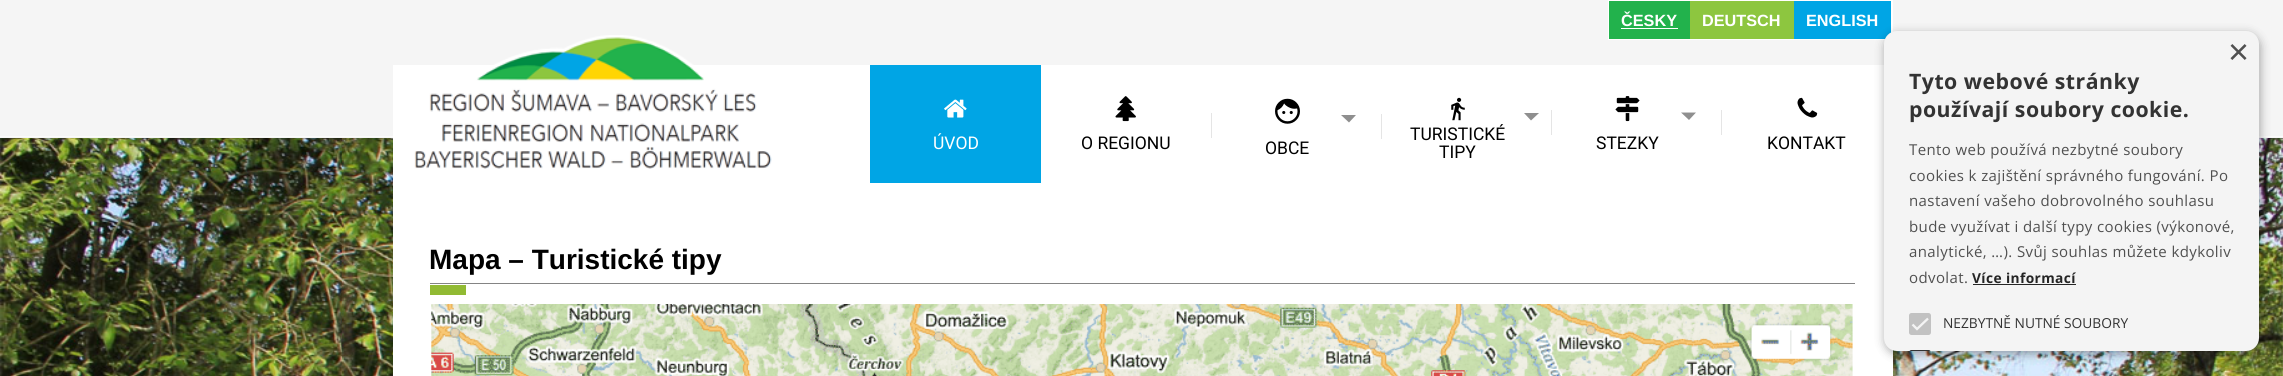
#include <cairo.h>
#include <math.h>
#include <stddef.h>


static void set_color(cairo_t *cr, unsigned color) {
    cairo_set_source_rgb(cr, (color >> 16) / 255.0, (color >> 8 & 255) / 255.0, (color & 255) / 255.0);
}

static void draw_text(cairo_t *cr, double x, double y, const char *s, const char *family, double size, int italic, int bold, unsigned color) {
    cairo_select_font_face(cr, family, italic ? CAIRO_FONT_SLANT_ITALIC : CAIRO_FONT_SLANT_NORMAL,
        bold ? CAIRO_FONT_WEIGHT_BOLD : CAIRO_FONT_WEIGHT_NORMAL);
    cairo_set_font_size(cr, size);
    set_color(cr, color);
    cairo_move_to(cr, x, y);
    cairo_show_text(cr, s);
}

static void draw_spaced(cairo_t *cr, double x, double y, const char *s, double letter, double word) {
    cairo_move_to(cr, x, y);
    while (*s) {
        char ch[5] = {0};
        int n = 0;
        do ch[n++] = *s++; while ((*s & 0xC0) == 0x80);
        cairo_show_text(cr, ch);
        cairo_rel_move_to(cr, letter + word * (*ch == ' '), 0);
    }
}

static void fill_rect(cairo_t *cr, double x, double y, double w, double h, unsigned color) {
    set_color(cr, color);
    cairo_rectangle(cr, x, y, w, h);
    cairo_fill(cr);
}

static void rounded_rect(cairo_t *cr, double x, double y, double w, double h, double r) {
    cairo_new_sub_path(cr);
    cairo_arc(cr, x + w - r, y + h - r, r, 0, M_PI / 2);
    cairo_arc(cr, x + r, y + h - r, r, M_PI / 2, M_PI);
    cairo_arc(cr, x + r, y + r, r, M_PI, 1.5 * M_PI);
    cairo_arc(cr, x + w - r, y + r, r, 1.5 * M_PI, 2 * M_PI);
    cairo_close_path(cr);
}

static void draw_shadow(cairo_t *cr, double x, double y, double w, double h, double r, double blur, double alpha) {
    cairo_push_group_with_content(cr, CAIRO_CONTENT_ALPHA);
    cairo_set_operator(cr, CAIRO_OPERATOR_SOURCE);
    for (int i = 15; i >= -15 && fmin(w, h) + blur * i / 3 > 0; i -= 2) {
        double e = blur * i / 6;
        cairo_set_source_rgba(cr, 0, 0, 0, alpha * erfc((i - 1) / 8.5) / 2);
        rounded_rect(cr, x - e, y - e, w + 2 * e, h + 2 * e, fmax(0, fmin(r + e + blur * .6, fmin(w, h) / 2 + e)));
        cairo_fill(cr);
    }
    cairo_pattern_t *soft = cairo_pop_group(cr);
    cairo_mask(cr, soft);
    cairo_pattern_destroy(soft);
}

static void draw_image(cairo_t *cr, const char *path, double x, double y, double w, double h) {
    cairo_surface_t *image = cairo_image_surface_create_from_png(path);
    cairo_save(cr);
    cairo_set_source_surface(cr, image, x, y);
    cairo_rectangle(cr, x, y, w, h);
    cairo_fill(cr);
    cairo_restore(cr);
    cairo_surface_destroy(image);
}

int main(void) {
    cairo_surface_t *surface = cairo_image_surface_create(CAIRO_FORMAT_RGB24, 2283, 376);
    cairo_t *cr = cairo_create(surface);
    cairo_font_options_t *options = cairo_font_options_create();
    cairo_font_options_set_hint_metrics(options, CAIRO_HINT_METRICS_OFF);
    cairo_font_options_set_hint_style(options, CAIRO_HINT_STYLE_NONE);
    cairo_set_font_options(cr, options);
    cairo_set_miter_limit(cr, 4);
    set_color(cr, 0xFFFFFF);
    cairo_paint(cr);
    fill_rect(cr, 0, 0, 2283, 138, 0xF5F5F5);
    fill_rect(cr, 0, 136, 2283, 1, 0xFBFBFB);
    fill_rect(cr, 1608, 0, 285, 40, 0xFFFFFF);
    fill_rect(cr, 1609, 1, 81, 38, 0x22B24C);
    draw_text(cr, 1621, 26, "ČESKY", "Liberation Sans", 16.25, 0, 1, 0xFFFFFF);
    fill_rect(cr, 1621, 28, 57, 1, 0xFFFFFF);
    fill_rect(cr, 1690, 1, 104, 38, 0x8DC63F);
    draw_text(cr, 1702, 26, "DEUTSCH", "Liberation Sans", 16.25, 0, 1, 0xFFFFFF);
    fill_rect(cr, 1794, 1, 97, 38, 0x00A5E5);
    draw_text(cr, 1806, 26, "ENGLISH", "Liberation Sans", 16.25, 0, 1, 0xFFFFFF);
    draw_image(cr, "assets/img8.png", 0, 138, 2283, 238);
    fill_rect(cr, 393, 65, 1491, 119, 0xFFFFFF);
    draw_image(cr, "assets/img1.png", 414, 35, 358, 134);
    fill_rect(cr, 870, 65, 171, 118, 0x00A5E5);
    draw_image(cr, "assets/img2.png", 944, 99, 23, 19);
    draw_text(cr, 933, 149, "ÚVOD", "Roboto", 17.5, 0, 0, 0xFFFFFF);
    draw_image(cr, "assets/img3.png", 1115, 96, 21, 26);
    draw_text(cr, 1081, 149, "O REGIONU", "Roboto", 17.5, 0, 0, 0x000000);
    fill_rect(cr, 1211, 113, 1, 25, 0xE5E5E5);
    set_color(cr, 0x8F8F8F);
    cairo_new_path(cr);
    cairo_move_to(cr, 1341, 115);
    cairo_line_to(cr, 1356, 115);
    cairo_line_to(cr, 1349, 122.5);
    cairo_close_path(cr);
    cairo_fill(cr);
    draw_image(cr, "assets/img4.png", 1275, 98, 25, 26);
    draw_text(cr, 1265, 154, "OBCE", "Roboto", 17.5, 0, 0, 0x000000);
    fill_rect(cr, 1381, 114, 1, 25, 0xE5E5E5);
    draw_image(cr, "assets/img5.png", 1451, 97, 14, 24);
    draw_text(cr, 1410, 140, "TURISTICKÉ", "Roboto", 17.5, 0, 0, 0x000000);
    draw_text(cr, 1439, 158, "TIPY", "Roboto", 17.5, 0, 0, 0x000000);
    set_color(cr, 0x8F8F8F);
    cairo_new_path(cr);
    cairo_move_to(cr, 1524, 113);
    cairo_line_to(cr, 1539, 113);
    cairo_line_to(cr, 1531, 120.5);
    cairo_close_path(cr);
    cairo_fill(cr);
    fill_rect(cr, 1551, 110, 1, 25, 0xE5E5E5);
    set_color(cr, 0x8F8F8F);
    cairo_new_path(cr);
    cairo_move_to(cr, 1681, 112.5);
    cairo_line_to(cr, 1696, 112.5);
    cairo_line_to(cr, 1689, 120);
    cairo_close_path(cr);
    cairo_fill(cr);
    draw_image(cr, "assets/img6.png", 1615, 96, 25, 26);
    draw_text(cr, 1596, 149, "STEZKY", "Roboto", 17.5, 0, 0, 0x000000);
    fill_rect(cr, 1721, 110, 1, 25, 0xE5E5E5);
    draw_image(cr, "assets/img7.png", 1797, 97, 21, 21);
    draw_text(cr, 1767, 149, "KONTAKT", "Roboto", 17.5, 0, 0, 0x000000);
    fill_rect(cr, 393, 184, 1500, 192, 0xFFFFFF);
    fill_rect(cr, 430, 283, 1425, 1, 0x848484);
    draw_text(cr, 429, 269, "Mapa – Turistické tipy", "Liberation Sans", 28, 0, 1, 0x000000);
    fill_rect(cr, 430, 285, 36, 10, 0x91BA33);
    draw_image(cr, "assets/img9.png", 431, 304, 1422, 72);
    set_color(cr, 0x000000);
    draw_shadow(cr, 1885, 34, 375, 320, 13, 5, 0.35);
    set_color(cr, 0xF4F4F4);
    rounded_rect(cr, 1884, 31, 375, 320, 13);
    cairo_fill(cr);
    draw_text(cr, 2228, 64, "×", "Liberation Sans", 36, 0, 0, 0x505050);
    cairo_select_font_face(cr, "Open Sans", CAIRO_FONT_SLANT_NORMAL, CAIRO_FONT_WEIGHT_BOLD);
    cairo_set_font_size(cr, 21.25);
    set_color(cr, 0x333333);
    draw_spaced(cr, 1909, 89, "Tyto webové stránky", 0.5, 0);
    draw_spaced(cr, 1909, 117, "používají soubory cookie.", 0.5, 0);
    cairo_select_font_face(cr, "Open Sans", CAIRO_FONT_SLANT_NORMAL, CAIRO_FONT_WEIGHT_NORMAL);
    cairo_set_font_size(cr, 15);
    set_color(cr, 0x505050);
    draw_spaced(cr, 1909, 155, "Tento web používá nezbytné soubory", 0.4, 0);
    draw_spaced(cr, 1909, 181, "cookies k zajištění správného fungování. Po", 0.4, 0);
    draw_spaced(cr, 1909, 206, "nastavení vašeho dobrovolného souhlasu", 0.4, 0);
    draw_spaced(cr, 1909, 232, "bude využívat i další typy cookies (výkonové,", 0.4, 0);
    draw_spaced(cr, 1909, 257, "analytické, …). Svůj souhlas můžete kdykoliv", 0.4, 0);
    draw_spaced(cr, 1909, 283, "odvolat.", 0.4, 0);
    cairo_select_font_face(cr, "Open Sans", CAIRO_FONT_SLANT_NORMAL, CAIRO_FONT_WEIGHT_BOLD);
    cairo_set_font_size(cr, 13.75);
    set_color(cr, 0x252525);
    draw_spaced(cr, 1972, 283, "Více informací", 0.4, 0);
    fill_rect(cr, 1973, 284, 103, 1, 0x252525);
    set_color(cr, 0xC2C2C2);
    rounded_rect(cr, 1909, 313, 22, 22, 2.5);
    cairo_fill(cr);
    cairo_new_path(cr);
    cairo_move_to(cr, 1912.5, 324.5);
    cairo_line_to(cr, 1917, 329);
    cairo_line_to(cr, 1928, 318.5);
    set_color(cr, 0xF4F4F4);
    cairo_set_line_width(cr, 2.3);
    cairo_stroke(cr);
    draw_text(cr, 1943, 328, "NEZBYTNĚ NUTNÉ SOUBORY", "Open Sans", 13.75, 0, 0, 0x333333);
    cairo_new_path(cr);
    cairo_move_to(cr, 1911.5, 350);
    cairo_line_to(cr, 1928.5, 350);
    cairo_curve_to(cr, 1929.5, 350, 1930, 350.5, 1930.5, 351);
    cairo_line_to(cr, 1909.5, 351);
    cairo_curve_to(cr, 1910, 350.5, 1910.5, 350, 1911.5, 350);
    cairo_close_path(cr);
    cairo_fill(cr);
    cairo_surface_write_to_png(surface, "output.png");
    cairo_font_options_destroy(options);
    cairo_destroy(cr);
    cairo_surface_destroy(surface);
    return 0;
}
